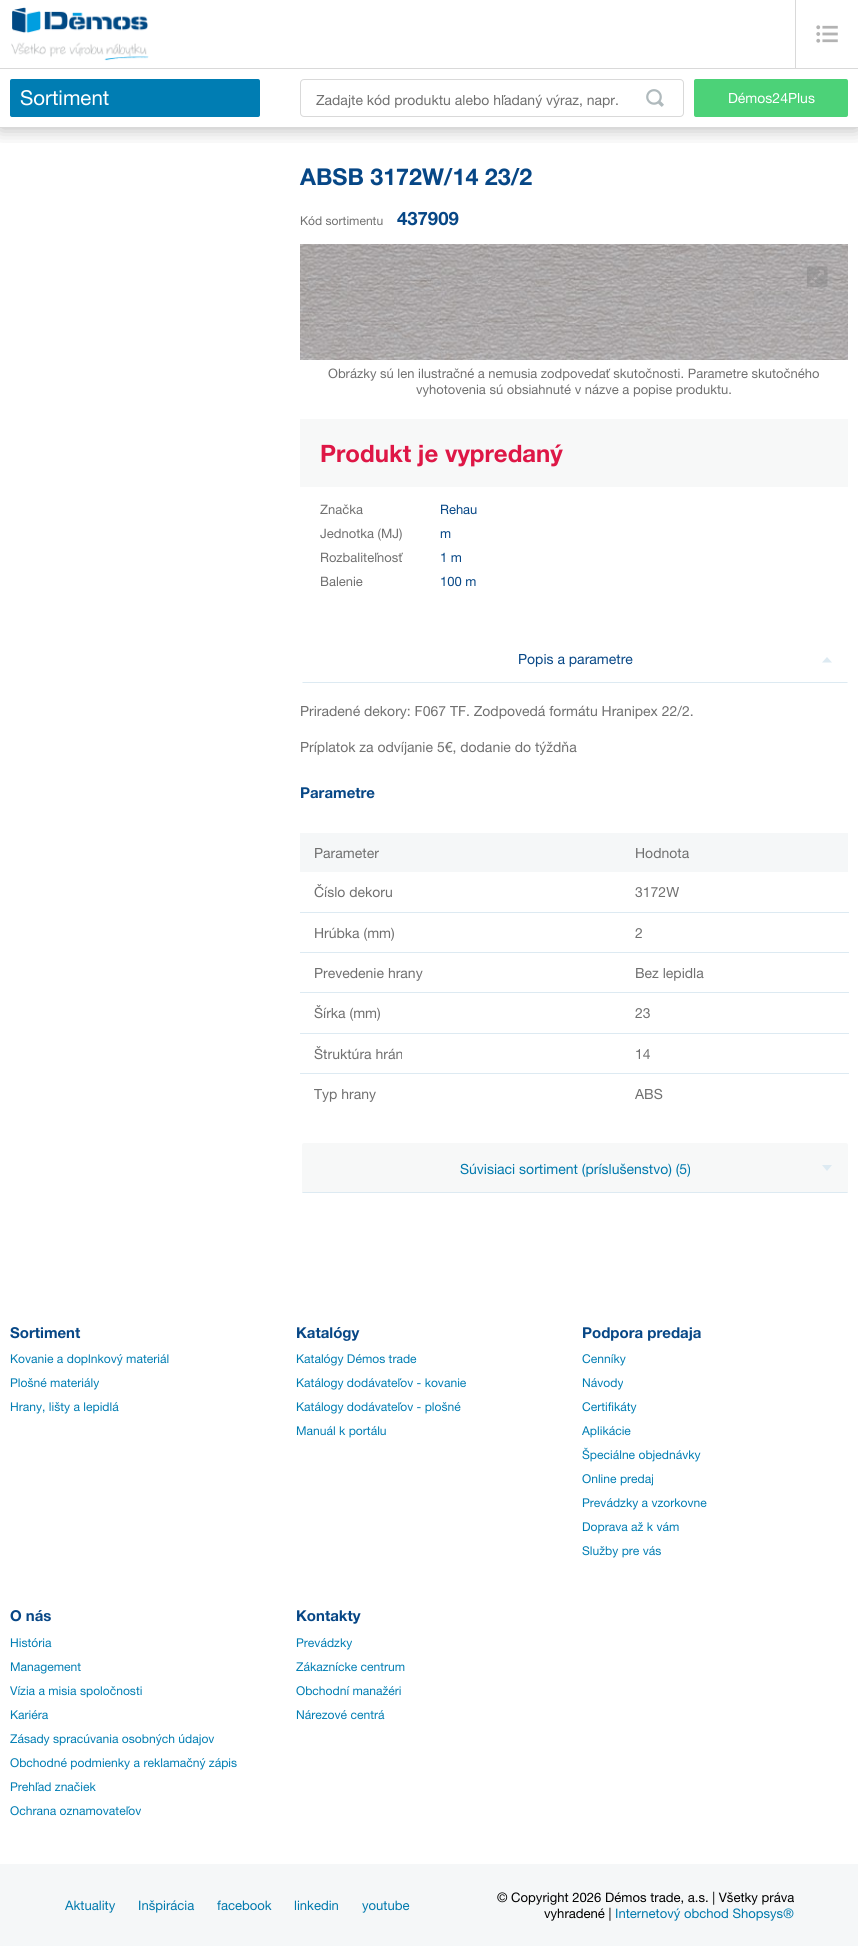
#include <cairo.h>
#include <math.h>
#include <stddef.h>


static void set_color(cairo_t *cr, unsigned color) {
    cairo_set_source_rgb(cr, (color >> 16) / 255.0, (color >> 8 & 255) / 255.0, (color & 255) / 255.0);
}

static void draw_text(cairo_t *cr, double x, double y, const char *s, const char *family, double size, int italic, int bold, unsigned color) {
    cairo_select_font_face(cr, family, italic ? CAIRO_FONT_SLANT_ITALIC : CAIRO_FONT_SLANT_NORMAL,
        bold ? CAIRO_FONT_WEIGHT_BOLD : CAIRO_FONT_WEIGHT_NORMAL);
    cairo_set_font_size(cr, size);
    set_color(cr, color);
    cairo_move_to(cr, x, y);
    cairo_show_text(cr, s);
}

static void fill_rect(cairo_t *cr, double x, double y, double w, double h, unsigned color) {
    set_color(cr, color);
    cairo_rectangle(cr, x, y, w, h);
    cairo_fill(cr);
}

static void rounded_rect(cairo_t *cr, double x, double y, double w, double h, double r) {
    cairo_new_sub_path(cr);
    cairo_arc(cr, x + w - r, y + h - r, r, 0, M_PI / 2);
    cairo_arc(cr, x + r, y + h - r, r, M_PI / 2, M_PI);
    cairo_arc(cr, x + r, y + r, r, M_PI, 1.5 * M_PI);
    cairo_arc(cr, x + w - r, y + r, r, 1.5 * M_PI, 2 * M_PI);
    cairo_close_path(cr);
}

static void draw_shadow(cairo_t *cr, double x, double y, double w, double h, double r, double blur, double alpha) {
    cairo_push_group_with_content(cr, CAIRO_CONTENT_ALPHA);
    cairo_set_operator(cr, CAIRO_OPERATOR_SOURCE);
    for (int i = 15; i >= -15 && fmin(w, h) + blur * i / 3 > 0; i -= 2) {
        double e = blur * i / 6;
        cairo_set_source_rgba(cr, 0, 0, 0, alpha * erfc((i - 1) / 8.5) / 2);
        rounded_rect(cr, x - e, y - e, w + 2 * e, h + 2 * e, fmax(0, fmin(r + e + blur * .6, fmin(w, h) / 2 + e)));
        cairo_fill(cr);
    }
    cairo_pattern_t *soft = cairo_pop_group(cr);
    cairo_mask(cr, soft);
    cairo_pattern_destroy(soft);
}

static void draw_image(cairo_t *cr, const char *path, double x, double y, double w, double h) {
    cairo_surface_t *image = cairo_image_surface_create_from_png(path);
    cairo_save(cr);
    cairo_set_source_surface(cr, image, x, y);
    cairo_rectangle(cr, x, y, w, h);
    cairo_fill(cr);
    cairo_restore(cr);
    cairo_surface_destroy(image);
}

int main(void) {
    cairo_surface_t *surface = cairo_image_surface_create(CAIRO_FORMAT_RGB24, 858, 1946);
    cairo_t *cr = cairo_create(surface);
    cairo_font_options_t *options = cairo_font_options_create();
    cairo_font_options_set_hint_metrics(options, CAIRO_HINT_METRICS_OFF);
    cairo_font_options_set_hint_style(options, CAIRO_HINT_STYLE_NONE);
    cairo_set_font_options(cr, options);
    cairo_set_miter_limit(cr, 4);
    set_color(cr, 0xFFFFFF);
    cairo_paint(cr);
    cairo_save(cr);
    cairo_rectangle(cr, 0, 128, 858, 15);
    cairo_clip(cr);
    set_color(cr, 0x000000);
    draw_shadow(cr, 0, 0, 858, 128, 0, 10, 0.3);
    cairo_restore(cr);
    fill_rect(cr, 0, 127, 858, 1, 0xD9D9D9);
    fill_rect(cr, 0, 68, 858, 1, 0xD9D9D9);
    set_color(cr, 0x007DB3);
    rounded_rect(cr, 10, 79, 250, 38, 2);
    cairo_fill(cr);
    draw_text(cr, 20, 105, "Sortiment", "Helvetica Neue", 20.5, 0, 0, 0xFFFFFF);
    draw_image(cr, "assets/img1.png", 11, 7, 138, 54);
    fill_rect(cr, 795, 0, 1, 68, 0xD9D9D9);
    draw_image(cr, "assets/img2.png", 816, 25, 22, 18);
    rounded_rect(cr, 300.5, 79.5, 383, 37, 3.5);
    cairo_set_line_width(cr, 1);
    cairo_stroke(cr);
    draw_text(cr, 316, 105, "Zadajte kód produktu alebo hľadaný výraz, napr.", "Helvetica Neue", 14, 0, 0, 0x707070);
    draw_image(cr, "assets/img3.png", 646, 89, 18, 18);
    set_color(cr, 0x4CD278);
    rounded_rect(cr, 694, 79, 154, 38, 2);
    cairo_fill(cr);
    draw_text(cr, 728, 103, "Démos24Plus", "Helvetica Neue", 14, 0, 0, 0xFFFFFF);
    draw_text(cr, 300, 185, "ABSB 3172W/14 23/2", "Helvetica Neue", 23.25, 0, 1, 0x074786);
    draw_text(cr, 300, 225, "Kód sortimentu", "Helvetica Neue", 12.1, 0, 0, 0x707070);
    draw_text(cr, 397, 225, "437909", "Helvetica Neue", 18.5, 0, 1, 0x074786);
    draw_image(cr, "assets/img4.png", 300, 244, 548, 116);
    draw_image(cr, "assets/img5.png", 807, 266, 21, 21);
    draw_text(cr, 328, 378, "Obrázky sú len ilustračné a nemusia zodpovedať skutočnosti. Parametre skutočného", "Helvetica Neue", 13, 0, 0, 0x707070);
    draw_text(cr, 416, 394, "vyhotovenia sú obsiahnuté v názve a popise produktu.", "Helvetica Neue", 13, 0, 0, 0x707070);
    fill_rect(cr, 300, 419, 548, 68, 0xF7F8F8);
    draw_text(cr, 320, 462, "Produkt je vypredaný", "Helvetica Neue", 24, 0, 1, 0xDE1746);
    draw_text(cr, 320, 514, "Značka", "Helvetica Neue", 13, 0, 0, 0x707070);
    draw_text(cr, 440, 514, "Rehau", "Helvetica Neue", 13, 0, 0, 0x074786);
    draw_text(cr, 320, 538, "Jednotka (MJ)", "Helvetica Neue", 13, 0, 0, 0x707070);
    draw_text(cr, 440, 538, "m", "Helvetica Neue", 13, 0, 0, 0x074786);
    draw_text(cr, 320, 562, "Rozbaliteľnosť", "Helvetica Neue", 13, 0, 0, 0x707070);
    draw_text(cr, 440, 562, "1 m", "Helvetica Neue", 13, 0, 0, 0x074786);
    draw_text(cr, 320, 586, "Balenie", "Helvetica Neue", 13, 0, 0, 0x707070);
    draw_text(cr, 440, 586, "100 m", "Helvetica Neue", 13, 0, 0, 0x074786);
    set_color(cr, 0xDDEAF2);
    cairo_new_path(cr);
    cairo_move_to(cr, 848, 683);
    cairo_line_to(cr, 847, 682);
    cairo_line_to(cr, 303, 682);
    cairo_line_to(cr, 302, 683);
    cairo_close_path(cr);
    cairo_fill(cr);
    draw_text(cr, 518, 664, "Popis a parametre", "Helvetica Neue", 14, 0, 0, 0x074786);
    set_color(cr, 0xDDEAF2);
    cairo_new_path(cr);
    cairo_move_to(cr, 832, 662.5);
    cairo_line_to(cr, 827, 657);
    cairo_line_to(cr, 822, 662.5);
    cairo_close_path(cr);
    cairo_fill(cr);
    draw_text(cr, 300, 716, "Priradené dekory: F067 TF. Zodpovedá formátu Hranipex 22/2.", "Helvetica Neue", 14, 0, 0, 0x707070);
    draw_text(cr, 300, 752, "Príplatok za odvíjanie 5€, dodanie do týždňa", "Helvetica Neue", 14, 0, 0, 0x707070);
    draw_text(cr, 300, 798, "Parametre", "Helvetica Neue", 15, 0, 1, 0x074786);
    fill_rect(cr, 300, 833, 548, 39, 0xF5F7F8);
    draw_text(cr, 314, 858, "Parameter", "Helvetica Neue", 14, 0, 0, 0x707070);
    draw_text(cr, 635, 858, "Hodnota", "Helvetica Neue", 14, 0, 0, 0x707070);
    draw_text(cr, 314, 897, "Číslo dekoru", "Helvetica Neue", 14, 0, 0, 0x707070);
    draw_text(cr, 635, 897, "3172W", "Helvetica Neue", 14, 0, 0, 0x707070);
    fill_rect(cr, 300, 912, 549, 1, 0xDDEAF2);
    draw_text(cr, 314, 938, "Hrúbka (mm)", "Helvetica Neue", 14, 0, 0, 0x707070);
    draw_text(cr, 635, 938, "2", "Helvetica Neue", 14, 0, 0, 0x707070);
    fill_rect(cr, 300, 952, 549, 1, 0xDDEAF2);
    draw_text(cr, 314, 978, "Prevedenie hrany", "Helvetica Neue", 14, 0, 0, 0x707070);
    draw_text(cr, 635, 978, "Bez lepidla", "Helvetica Neue", 14, 0, 0, 0x707070);
    fill_rect(cr, 300, 992, 549, 1, 0xDDEAF2);
    draw_text(cr, 314, 1018, "Šírka (mm)", "Helvetica Neue", 14, 0, 0, 0x707070);
    draw_text(cr, 635, 1018, "23", "Helvetica Neue", 14, 0, 0, 0x707070);
    fill_rect(cr, 300, 1033, 549, 1, 0xDDEAF2);
    draw_text(cr, 314, 1059, "Štruktúra hrán", "Helvetica Neue", 14, 0, 0, 0x707070);
    draw_text(cr, 635, 1059, "14", "Helvetica Neue", 14, 0, 0, 0x707070);
    fill_rect(cr, 300, 1073, 549, 1, 0xDDEAF2);
    draw_text(cr, 314, 1099, "Typ hrany", "Helvetica Neue", 14, 0, 0, 0x707070);
    draw_text(cr, 635, 1099, "ABS", "Helvetica Neue", 14, 0, 0, 0x707070);
    set_color(cr, 0xF7F8F8);
    cairo_new_path(cr);
    cairo_move_to(cr, 304, 1143);
    cairo_line_to(cr, 846, 1143);
    cairo_curve_to(cr, 847, 1143, 848, 1144, 848, 1145);
    cairo_line_to(cr, 848, 1193);
    cairo_line_to(cr, 302, 1193);
    cairo_line_to(cr, 302, 1145);
    cairo_curve_to(cr, 302, 1144, 303, 1143, 304, 1143);
    cairo_close_path(cr);
    cairo_fill(cr);
    set_color(cr, 0xDDEAF2);
    cairo_new_path(cr);
    cairo_move_to(cr, 848, 1193);
    cairo_line_to(cr, 847, 1192);
    cairo_line_to(cr, 303, 1192);
    cairo_line_to(cr, 302, 1193);
    cairo_close_path(cr);
    cairo_fill(cr);
    draw_text(cr, 460, 1174, "Súvisiaci sortiment (príslušenstvo) (5)", "Helvetica Neue", 14, 0, 0, 0x0079AD);
    set_color(cr, 0xDDEAF2);
    cairo_new_path(cr);
    cairo_move_to(cr, 822, 1165);
    cairo_line_to(cr, 827, 1171);
    cairo_line_to(cr, 832, 1165);
    cairo_close_path(cr);
    cairo_fill(cr);
    draw_text(cr, 10, 1338, "Sortiment", "Helvetica Neue", 15, 0, 1, 0x074786);
    draw_text(cr, 10, 1363, "Kovanie a doplnkový materiál", "Helvetica Neue", 12.1, 0, 0, 0x007DB3);
    draw_text(cr, 10, 1387, "Plošné materiály", "Helvetica Neue", 12.1, 0, 0, 0x007DB3);
    draw_text(cr, 10, 1411, "Hrany, lišty a lepidlá", "Helvetica Neue", 12.1, 0, 0, 0x007DB3);
    draw_text(cr, 296, 1338, "Katalógy", "Helvetica Neue", 15, 0, 1, 0x074786);
    draw_text(cr, 296, 1363, "Katalógy Démos trade", "Helvetica Neue", 12.1, 0, 0, 0x007DB3);
    draw_text(cr, 296, 1387, "Katálogy dodávateľov - kovanie", "Helvetica Neue", 12.1, 0, 0, 0x007DB3);
    draw_text(cr, 296, 1411, "Katálogy dodávateľov - plošné", "Helvetica Neue", 12.1, 0, 0, 0x007DB3);
    draw_text(cr, 296, 1435, "Manuál k portálu", "Helvetica Neue", 12.1, 0, 0, 0x007DB3);
    draw_text(cr, 582, 1338, "Podpora predaja", "Helvetica Neue", 15, 0, 1, 0x074786);
    draw_text(cr, 582, 1363, "Cenníky", "Helvetica Neue", 12.1, 0, 0, 0x007DB3);
    draw_text(cr, 582, 1387, "Návody", "Helvetica Neue", 12.1, 0, 0, 0x007DB3);
    draw_text(cr, 582, 1411, "Certifikáty", "Helvetica Neue", 12.1, 0, 0, 0x007DB3);
    draw_text(cr, 582, 1435, "Aplikácie", "Helvetica Neue", 12.1, 0, 0, 0x007DB3);
    draw_text(cr, 582, 1459, "Špeciálne objednávky", "Helvetica Neue", 12.1, 0, 0, 0x007DB3);
    draw_text(cr, 582, 1483, "Online predaj", "Helvetica Neue", 12.1, 0, 0, 0x007DB3);
    draw_text(cr, 582, 1507, "Prevádzky a vzorkovne", "Helvetica Neue", 12.1, 0, 0, 0x007DB3);
    draw_text(cr, 582, 1531, "Doprava až k vám", "Helvetica Neue", 12.1, 0, 0, 0x007DB3);
    draw_text(cr, 582, 1555, "Služby pre vás", "Helvetica Neue", 12.1, 0, 0, 0x007DB3);
    draw_text(cr, 10, 1621, "O nás", "Helvetica Neue", 15, 0, 1, 0x074786);
    draw_text(cr, 10, 1647, "História", "Helvetica Neue", 12.1, 0, 0, 0x007DB3);
    draw_text(cr, 10, 1671, "Management", "Helvetica Neue", 12.1, 0, 0, 0x007DB3);
    draw_text(cr, 10, 1695, "Vízia a misia spoločnosti", "Helvetica Neue", 12.1, 0, 0, 0x007DB3);
    draw_text(cr, 10, 1719, "Kariéra", "Helvetica Neue", 12.1, 0, 0, 0x007DB3);
    draw_text(cr, 10, 1743, "Zásady spracúvania osobných údajov", "Helvetica Neue", 12.1, 0, 0, 0x007DB3);
    draw_text(cr, 10, 1767, "Obchodné podmienky a reklamačný zápis", "Helvetica Neue", 12.1, 0, 0, 0x007DB3);
    draw_text(cr, 10, 1791, "Prehľad značiek", "Helvetica Neue", 12.1, 0, 0, 0x007DB3);
    draw_text(cr, 10, 1815, "Ochrana oznamovateľov", "Helvetica Neue", 12.1, 0, 0, 0x007DB3);
    draw_text(cr, 296, 1621, "Kontakty", "Helvetica Neue", 15, 0, 1, 0x074786);
    draw_text(cr, 296, 1647, "Prevádzky", "Helvetica Neue", 12.1, 0, 0, 0x007DB3);
    draw_text(cr, 296, 1671, "Zákaznícke centrum", "Helvetica Neue", 12.1, 0, 0, 0x007DB3);
    draw_text(cr, 296, 1695, "Obchodní manažéri", "Helvetica Neue", 12.1, 0, 0, 0x007DB3);
    draw_text(cr, 296, 1719, "Nárezové centrá", "Helvetica Neue", 12.1, 0, 0, 0x007DB3);
    fill_rect(cr, 0, 1864, 858, 82, 0xF5F7F8);
    draw_text(cr, 65, 1910, "Aktuality", "Helvetica Neue", 13.1, 0, 0, 0x0079AD);
    draw_text(cr, 138, 1910, "Inšpirácia", "Helvetica Neue", 13.1, 0, 0, 0x0079AD);
    draw_text(cr, 217, 1910, "facebook", "Helvetica Neue", 13.1, 0, 0, 0x0079AD);
    draw_text(cr, 294, 1910, "linkedin", "Helvetica Neue", 13.1, 0, 0, 0x0079AD);
    draw_text(cr, 362, 1910, "youtube", "Helvetica Neue", 13.1, 0, 0, 0x0079AD);
    draw_text(cr, 497, 1902, "© Copyright 2026 Démos trade, a.s. | Všetky práva", "Helvetica Neue", 13.1, 0, 0, 0x000000);
    draw_text(cr, 544, 1918, "vyhradené |", "Helvetica Neue", 13.1, 0, 0, 0x000000);
    draw_text(cr, 615, 1918, "Internetový obchod Shopsys®", "Helvetica Neue", 13.1, 0, 0, 0x0079AD);
    cairo_surface_write_to_png(surface, "output.png");
    cairo_font_options_destroy(options);
    cairo_destroy(cr);
    cairo_surface_destroy(surface);
    return 0;
}
